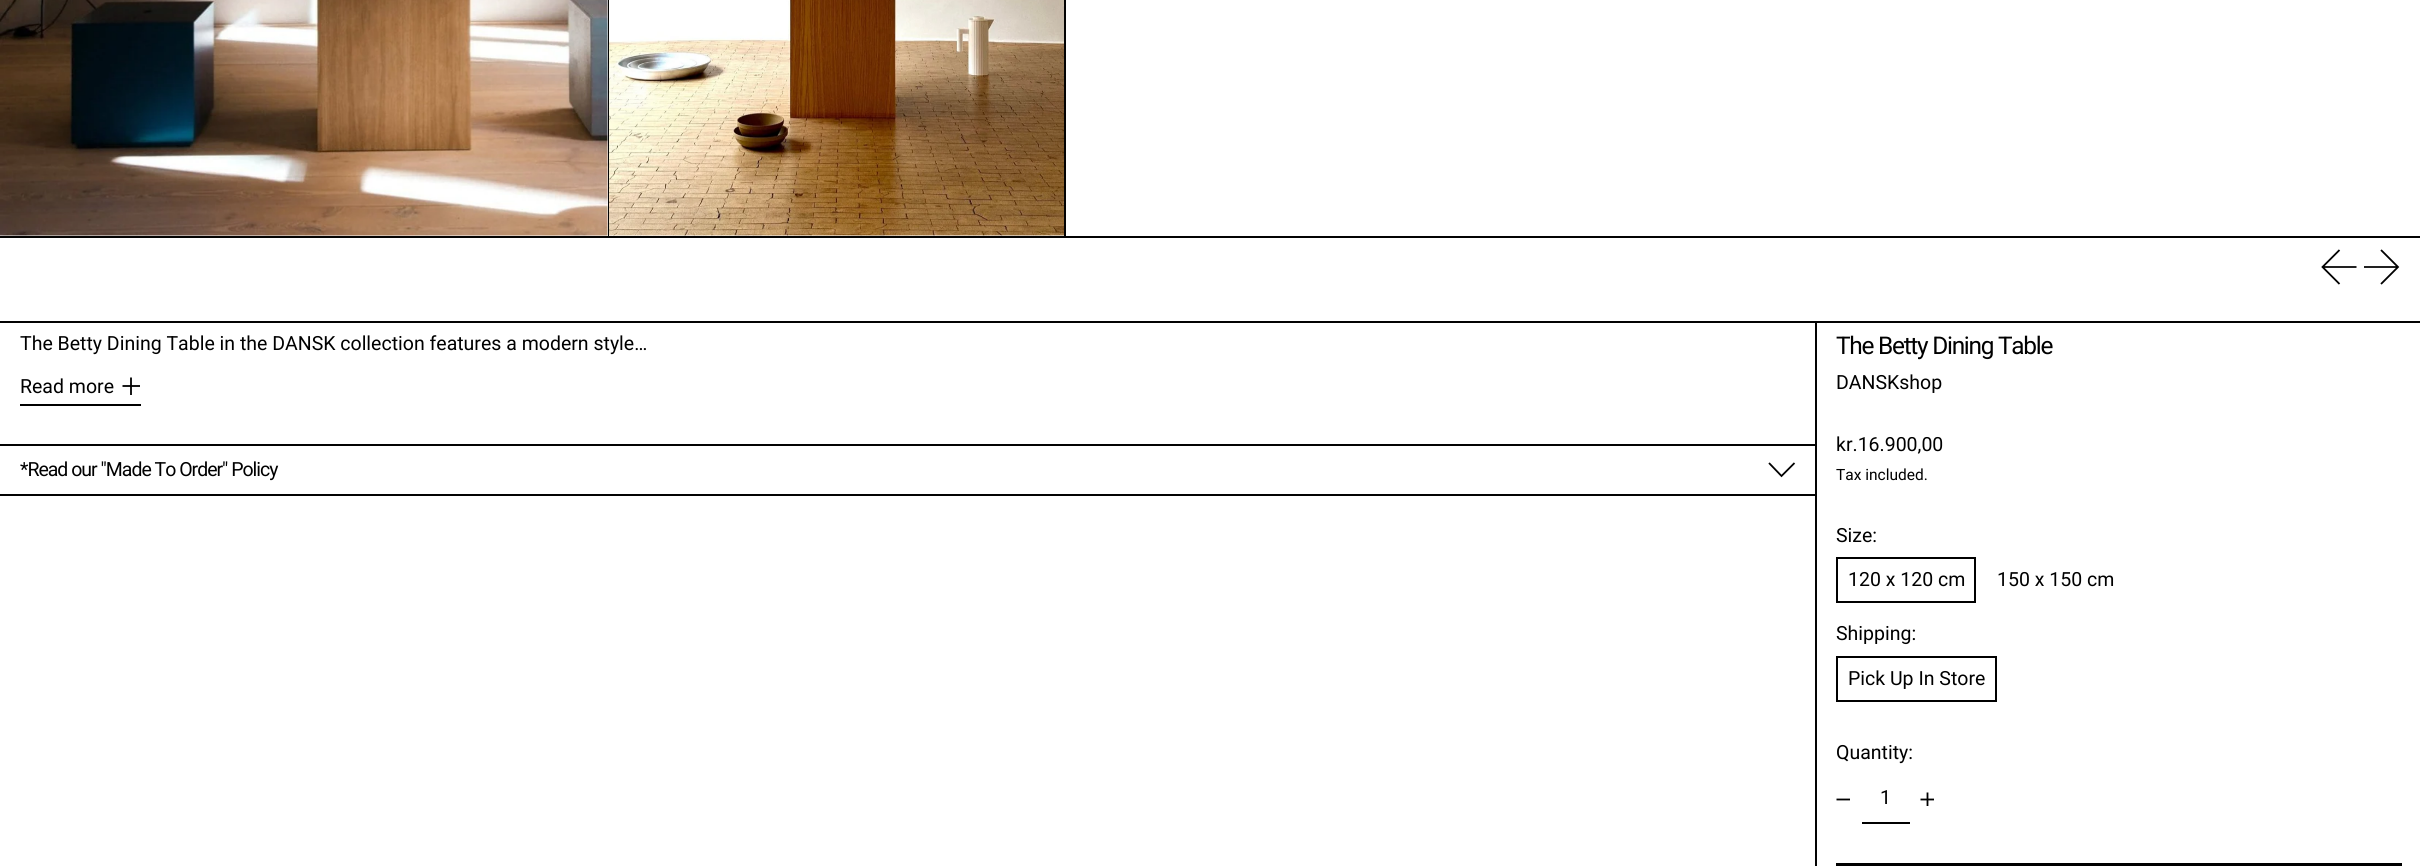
#include <cairo.h>
#include <math.h>
#include <stddef.h>


static void set_color(cairo_t *cr, unsigned color) {
    cairo_set_source_rgb(cr, (color >> 16) / 255.0, (color >> 8 & 255) / 255.0, (color & 255) / 255.0);
}

static void draw_text(cairo_t *cr, double x, double y, const char *s, const char *family, double size, int italic, int bold, unsigned color) {
    cairo_select_font_face(cr, family, italic ? CAIRO_FONT_SLANT_ITALIC : CAIRO_FONT_SLANT_NORMAL,
        bold ? CAIRO_FONT_WEIGHT_BOLD : CAIRO_FONT_WEIGHT_NORMAL);
    cairo_set_font_size(cr, size);
    set_color(cr, color);
    cairo_move_to(cr, x, y);
    cairo_show_text(cr, s);
}

static void draw_spaced(cairo_t *cr, double x, double y, const char *s, double letter, double word) {
    cairo_move_to(cr, x, y);
    while (*s) {
        char ch[5] = {0};
        int n = 0;
        do ch[n++] = *s++; while ((*s & 0xC0) == 0x80);
        cairo_show_text(cr, ch);
        cairo_rel_move_to(cr, letter + word * (*ch == ' '), 0);
    }
}

static void fill_rect(cairo_t *cr, double x, double y, double w, double h, unsigned color) {
    set_color(cr, color);
    cairo_rectangle(cr, x, y, w, h);
    cairo_fill(cr);
}

static void draw_image(cairo_t *cr, const char *path, double x, double y, double w, double h) {
    cairo_surface_t *image = cairo_image_surface_create_from_png(path);
    cairo_save(cr);
    cairo_set_source_surface(cr, image, x, y);
    cairo_rectangle(cr, x, y, w, h);
    cairo_fill(cr);
    cairo_restore(cr);
    cairo_surface_destroy(image);
}

int main(void) {
    cairo_surface_t *surface = cairo_image_surface_create(CAIRO_FORMAT_RGB24, 2420, 866);
    cairo_t *cr = cairo_create(surface);
    cairo_font_options_t *options = cairo_font_options_create();
    cairo_font_options_set_hint_metrics(options, CAIRO_HINT_METRICS_OFF);
    cairo_font_options_set_hint_style(options, CAIRO_HINT_STYLE_NONE);
    cairo_set_font_options(cr, options);
    cairo_set_miter_limit(cr, 4);
    set_color(cr, 0xFFFFFF);
    cairo_paint(cr);
    fill_rect(cr, 0, 236, 2420, 2, 0x030303);
    fill_rect(cr, 608, 0, 1, 236, 0x030303);
    draw_image(cr, "assets/img1.png", 0, 0, 608, 236);
    fill_rect(cr, 1064, 0, 2, 236, 0x030303);
    draw_image(cr, "assets/img2.png", 609, 0, 455, 236);
    cairo_new_path(cr);
    cairo_move_to(cr, 2356.5, 267);
    cairo_line_to(cr, 2322.5, 267);
    cairo_move_to(cr, 2339.5, 284);
    cairo_line_to(cr, 2322.5, 267);
    cairo_line_to(cr, 2339.5, 250);
    set_color(cr, 0x000000);
    cairo_set_line_width(cr, 1.8);
    cairo_stroke(cr);
    cairo_new_path(cr);
    cairo_move_to(cr, 2364, 267);
    cairo_line_to(cr, 2398, 267);
    cairo_move_to(cr, 2381, 284);
    cairo_line_to(cr, 2398, 267);
    cairo_line_to(cr, 2381, 250);
    cairo_stroke(cr);
    fill_rect(cr, 1815, 323, 2, 543, 0x030303);
    fill_rect(cr, 0, 321, 2420, 2, 0x030303);
    draw_text(cr, 20, 350, "The Betty Dining Table in the DANSK collection features a modern style…", "Roboto", 19.5, 0, 0, 0x000000);
    fill_rect(cr, 20, 404, 121, 2, 0x000000);
    draw_text(cr, 20, 393, "Read more", "Roboto", 19.5, 0, 0, 0x000000);
    cairo_new_path(cr);
    cairo_move_to(cr, 131, 377.5);
    cairo_line_to(cr, 131, 395);
    cairo_move_to(cr, 122.5, 386);
    cairo_line_to(cr, 140, 386);
    cairo_stroke(cr);
    fill_rect(cr, 0, 444, 1815, 2, 0x030303);
    fill_rect(cr, 0, 494, 1815, 2, 0x030303);
    set_color(cr, 0x000000);
    draw_spaced(cr, 20, 476, "*Read our \"Made To Order\" Policy", -1, 0);
    cairo_new_path(cr);
    cairo_move_to(cr, 1769, 463);
    cairo_line_to(cr, 1781.5, 476);
    cairo_line_to(cr, 1794.5, 463);
    cairo_stroke(cr);
    cairo_set_font_size(cr, 24.4);
    draw_spaced(cr, 1836, 354, "The Betty Dining Table", -1.25, 0);
    draw_text(cr, 1836, 389, "DANSKshop", "Roboto", 19.5, 0, 0, 0x000000);
    draw_text(cr, 1836, 451, "kr.16.900,00", "Roboto", 19.5, 0, 0, 0x000000);
    draw_text(cr, 1836, 480, "Tax included.", "Roboto", 15.5, 0, 0, 0x000000);
    draw_text(cr, 1836, 542, "Size:", "Roboto", 19.5, 0, 0, 0x000000);
    cairo_rectangle(cr, 1837, 558, 138, 44);
    cairo_set_line_width(cr, 2);
    cairo_stroke(cr);
    draw_text(cr, 1848, 586, "120 x 120 cm", "Roboto", 19.5, 0, 0, 0x000000);
    draw_text(cr, 1997, 586, "150 x 150 cm", "Roboto", 19.5, 0, 0, 0x000000);
    draw_text(cr, 1836, 640, "Shipping:", "Roboto", 19.5, 0, 0, 0x000000);
    cairo_rectangle(cr, 1837, 657, 159, 44);
    cairo_stroke(cr);
    draw_text(cr, 1848, 685, "Pick Up In Store", "Roboto", 19.5, 0, 0, 0x000000);
    draw_text(cr, 1836, 759, "Quantity:", "Roboto", 19.5, 0, 0, 0x000000);
    cairo_new_path(cr);
    cairo_move_to(cr, 1836.5, 799.5);
    cairo_line_to(cr, 1850, 799.5);
    cairo_set_line_width(cr, 1.8);
    cairo_stroke(cr);
    fill_rect(cr, 1862, 822, 48, 2, 0x000000);
    draw_text(cr, 1880, 804, "1", "Roboto", 19.5, 0, 0, 0x000000);
    cairo_new_path(cr);
    cairo_move_to(cr, 1927.5, 792.5);
    cairo_line_to(cr, 1927.5, 806);
    cairo_move_to(cr, 1920.5, 799.5);
    cairo_line_to(cr, 1934, 799.5);
    cairo_stroke(cr);
    fill_rect(cr, 1836, 863, 566, 3, 0x000000);
    cairo_surface_write_to_png(surface, "output.png");
    cairo_font_options_destroy(options);
    cairo_destroy(cr);
    cairo_surface_destroy(surface);
    return 0;
}
